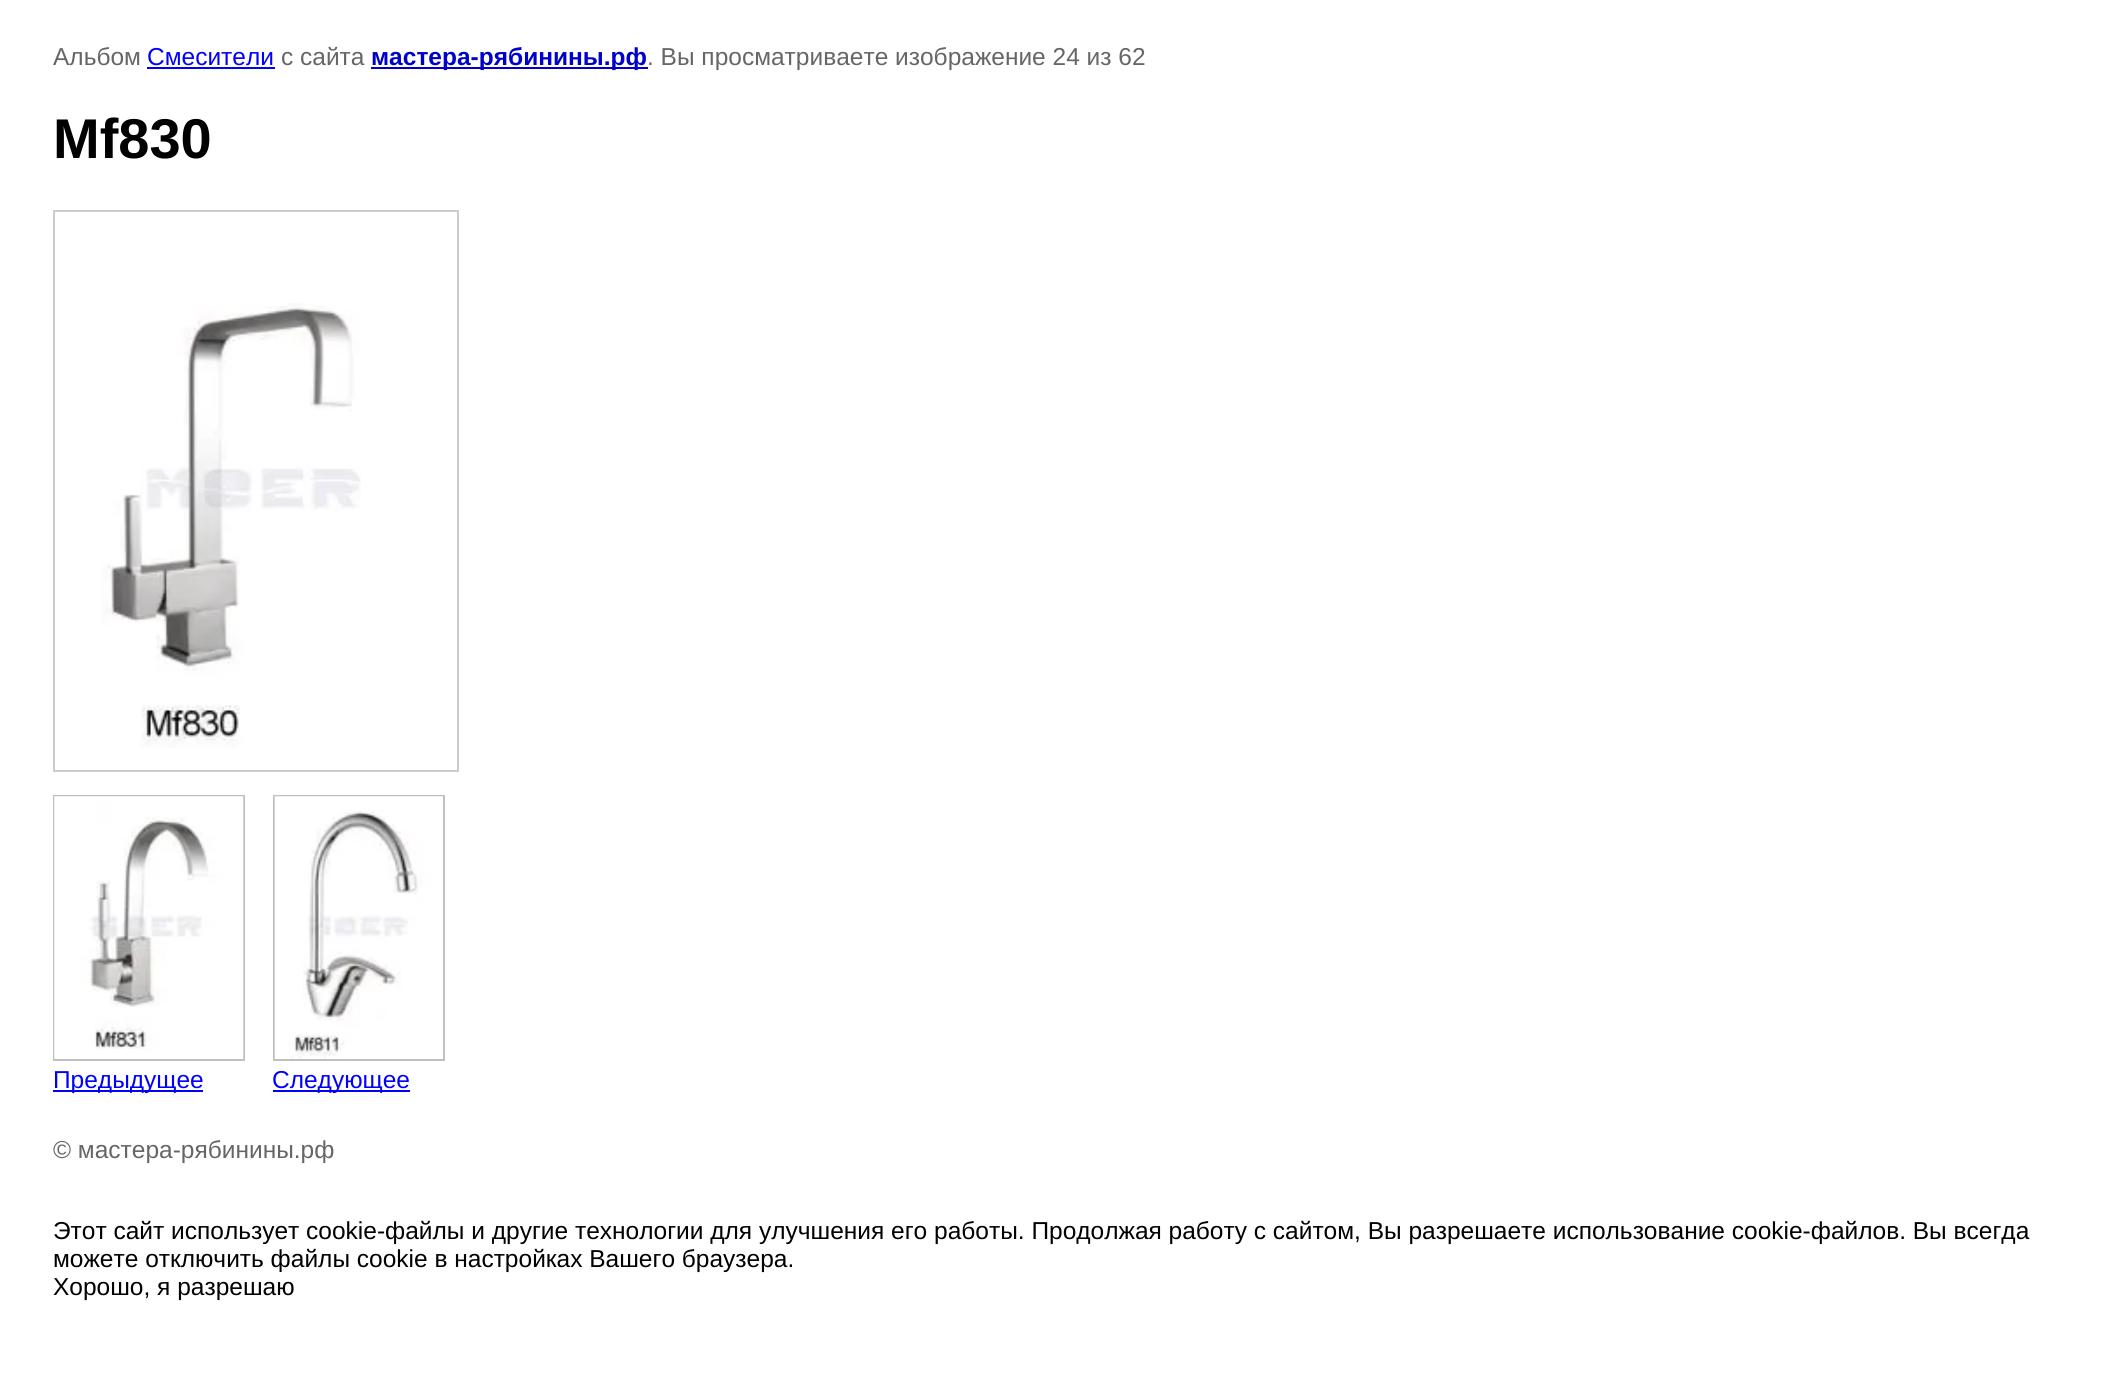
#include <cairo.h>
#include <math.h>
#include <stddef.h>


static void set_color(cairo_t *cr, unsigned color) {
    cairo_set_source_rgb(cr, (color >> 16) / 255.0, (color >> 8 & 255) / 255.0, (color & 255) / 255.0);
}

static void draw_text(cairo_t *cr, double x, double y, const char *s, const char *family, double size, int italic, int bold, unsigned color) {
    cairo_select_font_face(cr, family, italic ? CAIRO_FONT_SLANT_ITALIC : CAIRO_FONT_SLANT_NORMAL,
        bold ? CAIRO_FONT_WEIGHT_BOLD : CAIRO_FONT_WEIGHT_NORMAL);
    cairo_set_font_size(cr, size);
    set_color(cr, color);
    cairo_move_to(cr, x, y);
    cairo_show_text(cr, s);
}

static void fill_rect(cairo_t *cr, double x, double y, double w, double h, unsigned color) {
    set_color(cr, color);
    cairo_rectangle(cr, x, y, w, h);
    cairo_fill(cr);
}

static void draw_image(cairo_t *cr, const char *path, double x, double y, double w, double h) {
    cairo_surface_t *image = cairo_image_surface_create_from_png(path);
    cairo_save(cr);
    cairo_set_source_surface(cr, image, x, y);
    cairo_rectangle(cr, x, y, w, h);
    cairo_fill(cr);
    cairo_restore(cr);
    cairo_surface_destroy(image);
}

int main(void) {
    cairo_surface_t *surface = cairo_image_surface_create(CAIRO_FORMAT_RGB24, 2101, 1374);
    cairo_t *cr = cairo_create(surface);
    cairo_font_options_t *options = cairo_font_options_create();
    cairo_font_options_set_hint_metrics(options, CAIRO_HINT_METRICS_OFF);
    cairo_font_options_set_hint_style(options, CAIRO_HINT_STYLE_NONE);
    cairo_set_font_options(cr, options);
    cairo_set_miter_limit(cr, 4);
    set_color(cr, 0xFFFFFF);
    cairo_paint(cr);
    draw_text(cr, 53, 65, "Альбом", "Liberation Sans", 24.5, 0, 0, 0x666666);
    draw_text(cr, 147, 65, "Смесители", "Liberation Sans", 24.5, 0, 0, 0x0000FF);
    fill_rect(cr, 147, 67, 128, 2, 0x0000FF);
    draw_text(cr, 281, 65, "с сайта", "Liberation Sans", 24.5, 0, 0, 0x666666);
    fill_rect(cr, 371, 67, 277, 2, 0x0000CC);
    draw_text(cr, 371, 65, "мастера-рябинины.рф", "Liberation Sans", 24.5, 0, 1, 0x0000CC);
    draw_text(cr, 647, 65, ". Вы просматриваете изображение 24 из 62", "Liberation Sans", 24.5, 0, 0, 0x666666);
    draw_text(cr, 53, 158, "Mf830", "Liberation Sans", 56, 0, 1, 0x000000);
    cairo_rectangle(cr, 54, 211, 404, 560);
    set_color(cr, 0xCCCCCC);
    cairo_stroke(cr);
    draw_image(cr, "assets/img1.png", 101, 303, 260, 445);
    cairo_rectangle(cr, 54, 796, 190, 264);
    set_color(cr, 0xC0C0C0);
    cairo_stroke(cr);
    draw_image(cr, "assets/img2.png", 54, 796, 190, 263);
    fill_rect(cr, 53, 1090, 150, 2, 0x0000FF);
    draw_text(cr, 53, 1088, "Предыдущее", "Liberation Sans", 24.5, 0, 0, 0x0000FF);
    cairo_rectangle(cr, 274, 796, 170, 264);
    set_color(cr, 0xC0C0C0);
    cairo_stroke(cr);
    draw_image(cr, "assets/img3.png", 274, 796, 169, 263);
    fill_rect(cr, 273, 1090, 137, 2, 0x0000FF);
    draw_text(cr, 272, 1088, "Следующее", "Liberation Sans", 24.5, 0, 0, 0x0000FF);
    draw_text(cr, 53, 1158, "© мастера-рябинины.рф", "Liberation Sans", 24.5, 0, 0, 0x666666);
    draw_text(cr, 53, 1239, "Этот сайт использует cookie-файлы и другие технологии для улучшения его работы. Продолжая работу с сайтом, Вы разрешаете использование cookie-файлов. Вы всегда", "Liberation Sans", 24.5, 0, 0, 0x000000);
    draw_text(cr, 53, 1267, "можете отключить файлы cookie в настройках Вашего браузера.", "Liberation Sans", 24.5, 0, 0, 0x000000);
    fill_rect(cr, 279, 1272, 3, 1, 0xFFFFFF);
    draw_text(cr, 53, 1295, "Хорошо, я разрешаю", "Liberation Sans", 24.5, 0, 0, 0x000000);
    cairo_surface_write_to_png(surface, "output.png");
    cairo_font_options_destroy(options);
    cairo_destroy(cr);
    cairo_surface_destroy(surface);
    return 0;
}
